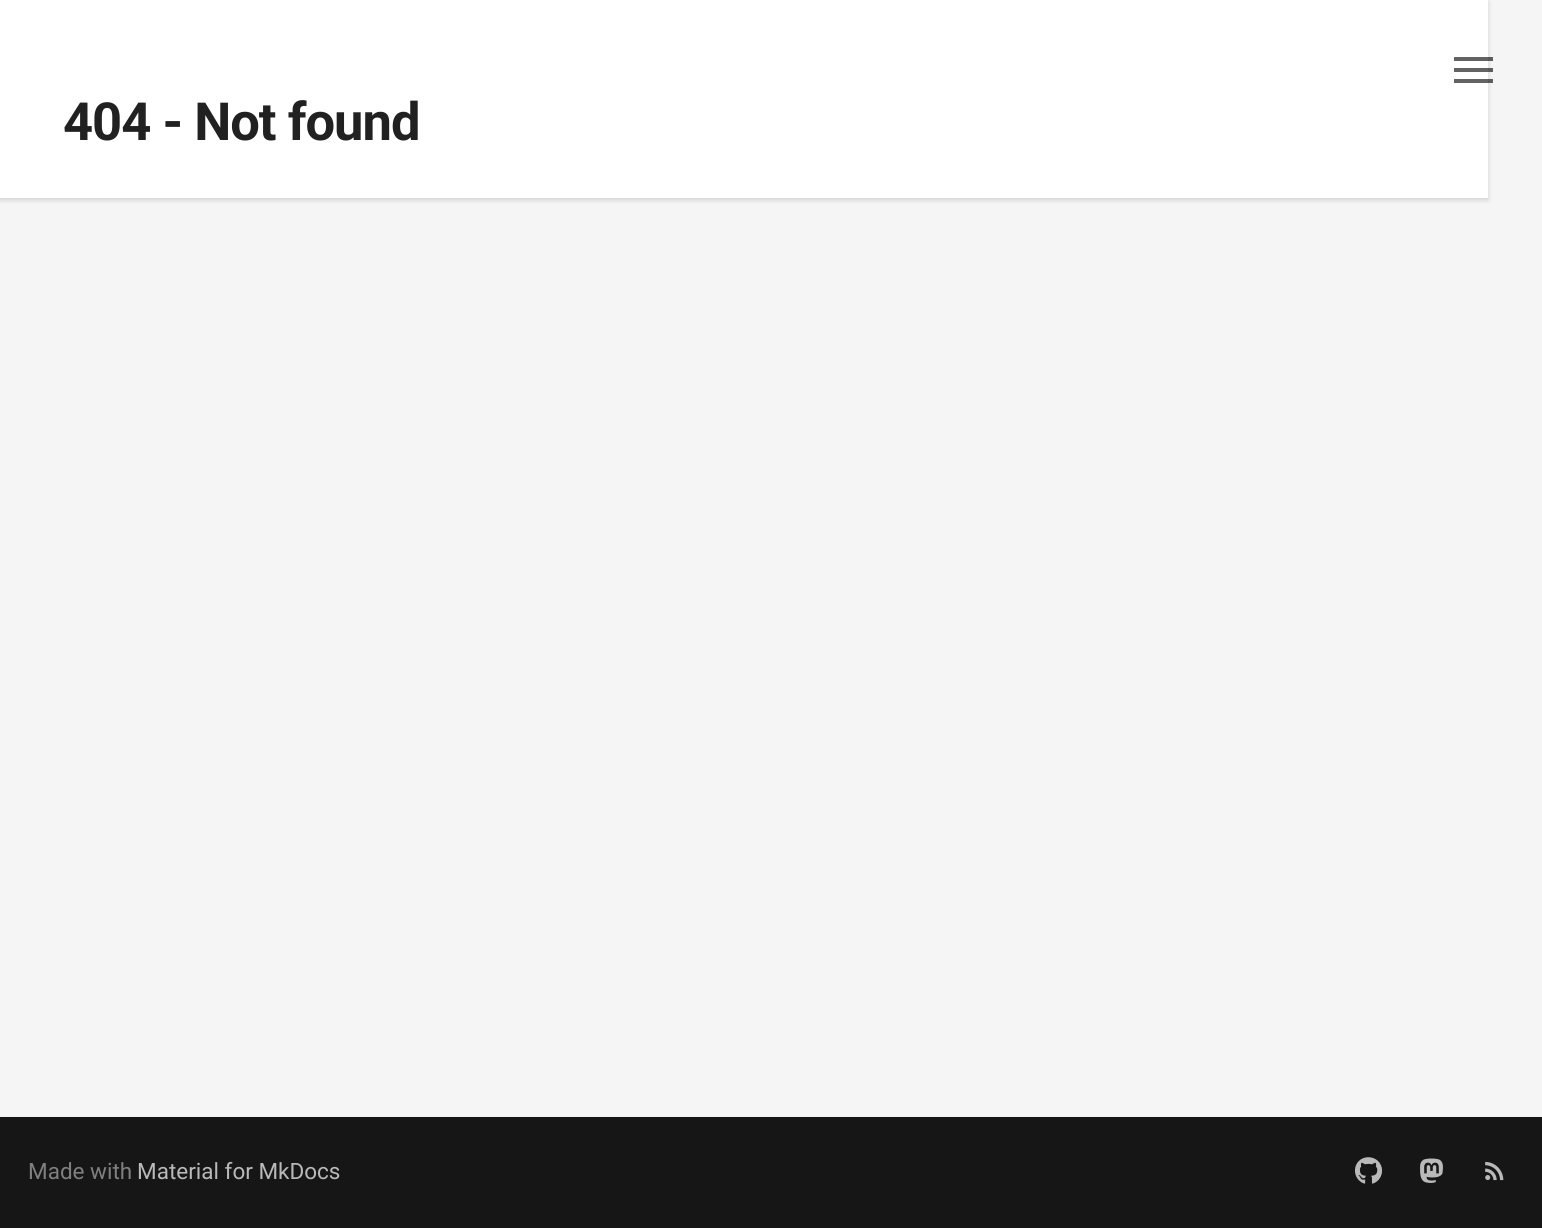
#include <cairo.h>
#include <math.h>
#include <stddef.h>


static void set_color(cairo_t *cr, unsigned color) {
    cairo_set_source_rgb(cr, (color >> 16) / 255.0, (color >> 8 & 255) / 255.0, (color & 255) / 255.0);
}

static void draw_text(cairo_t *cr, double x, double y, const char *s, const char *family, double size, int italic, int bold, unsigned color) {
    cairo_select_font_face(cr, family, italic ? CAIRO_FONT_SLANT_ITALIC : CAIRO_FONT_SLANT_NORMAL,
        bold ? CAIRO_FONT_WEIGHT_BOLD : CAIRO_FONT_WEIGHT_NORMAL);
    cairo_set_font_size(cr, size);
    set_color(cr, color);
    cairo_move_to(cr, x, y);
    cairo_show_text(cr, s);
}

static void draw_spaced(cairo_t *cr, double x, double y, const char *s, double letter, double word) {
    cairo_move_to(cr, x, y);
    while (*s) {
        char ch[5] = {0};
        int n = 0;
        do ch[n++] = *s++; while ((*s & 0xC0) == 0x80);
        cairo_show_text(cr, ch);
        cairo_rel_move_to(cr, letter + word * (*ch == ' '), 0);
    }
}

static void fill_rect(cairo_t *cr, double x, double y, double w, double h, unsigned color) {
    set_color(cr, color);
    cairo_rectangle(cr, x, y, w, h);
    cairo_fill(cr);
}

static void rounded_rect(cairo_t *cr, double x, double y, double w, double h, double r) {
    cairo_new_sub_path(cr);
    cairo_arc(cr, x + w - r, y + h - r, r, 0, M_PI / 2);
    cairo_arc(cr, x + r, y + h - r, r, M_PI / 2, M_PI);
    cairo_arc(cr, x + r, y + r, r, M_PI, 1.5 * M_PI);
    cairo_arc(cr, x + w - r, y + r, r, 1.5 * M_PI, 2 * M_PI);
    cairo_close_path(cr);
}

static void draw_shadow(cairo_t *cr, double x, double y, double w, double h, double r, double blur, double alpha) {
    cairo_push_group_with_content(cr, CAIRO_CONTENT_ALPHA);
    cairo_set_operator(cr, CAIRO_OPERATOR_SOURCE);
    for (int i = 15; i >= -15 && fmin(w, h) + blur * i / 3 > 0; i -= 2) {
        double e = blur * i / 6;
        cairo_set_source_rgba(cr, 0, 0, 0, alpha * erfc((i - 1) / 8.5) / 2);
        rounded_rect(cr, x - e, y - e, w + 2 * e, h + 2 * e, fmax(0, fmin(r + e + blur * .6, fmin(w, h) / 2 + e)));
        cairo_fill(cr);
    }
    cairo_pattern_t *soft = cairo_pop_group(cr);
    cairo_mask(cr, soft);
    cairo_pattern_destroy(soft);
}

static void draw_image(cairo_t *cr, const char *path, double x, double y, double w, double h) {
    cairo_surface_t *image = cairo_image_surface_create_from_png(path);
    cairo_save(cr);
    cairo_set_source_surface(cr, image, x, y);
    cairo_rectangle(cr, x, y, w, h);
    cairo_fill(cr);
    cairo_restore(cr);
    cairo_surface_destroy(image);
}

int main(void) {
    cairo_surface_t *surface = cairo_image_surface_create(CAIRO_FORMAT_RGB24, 1542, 1228);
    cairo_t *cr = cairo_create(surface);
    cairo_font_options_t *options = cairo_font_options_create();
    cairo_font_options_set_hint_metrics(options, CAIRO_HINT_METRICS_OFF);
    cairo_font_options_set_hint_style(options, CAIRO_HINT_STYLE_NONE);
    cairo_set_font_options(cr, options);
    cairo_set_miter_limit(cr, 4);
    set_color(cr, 0xF5F5F5);
    cairo_paint(cr);
    set_color(cr, 0x000000);
    draw_shadow(cr, 0, 2, 1488, 198, 0, 2.5, 0.15);
    fill_rect(cr, 0, 0, 1488, 198, 0xFFFFFF);
    cairo_set_source_rgba(cr, 0, 0, 0, 0.61);
    cairo_new_path(cr);
    cairo_move_to(cr, 1454, 57);
    cairo_line_to(cr, 1493, 57);
    cairo_line_to(cr, 1493, 61);
    cairo_line_to(cr, 1454, 61);
    cairo_line_to(cr, 1454, 57);
    cairo_move_to(cr, 1454, 68);
    cairo_line_to(cr, 1493, 68);
    cairo_line_to(cr, 1493, 72);
    cairo_line_to(cr, 1454, 72);
    cairo_line_to(cr, 1454, 68);
    cairo_move_to(cr, 1454, 79);
    cairo_line_to(cr, 1493, 79);
    cairo_line_to(cr, 1493, 83);
    cairo_line_to(cr, 1454, 83);
    cairo_close_path(cr);
    cairo_fill(cr);
    cairo_select_font_face(cr, "Roboto", CAIRO_FONT_SLANT_NORMAL, CAIRO_FONT_WEIGHT_BOLD);
    cairo_set_font_size(cr, 52.5);
    set_color(cr, 0x212121);
    draw_spaced(cr, 63, 140, "404 - Not found", -1, 0);
    fill_rect(cr, 0, 1117, 1542, 111, 0x161616);
    draw_text(cr, 28, 1179, "Made with", "Roboto", 22.5, 0, 0, 0x7F7F7F);
    draw_text(cr, 137, 1179, "Material for MkDocs", "Roboto", 22.5, 0, 0, 0xB9B9B9);
    draw_image(cr, "assets/img1.png", 1355, 1157, 28, 27);
    draw_image(cr, "assets/img2.png", 1420, 1158, 23, 25);
    draw_image(cr, "assets/img3.png", 1485, 1161, 19, 20);
    cairo_surface_write_to_png(surface, "output.png");
    cairo_font_options_destroy(options);
    cairo_destroy(cr);
    cairo_surface_destroy(surface);
    return 0;
}
